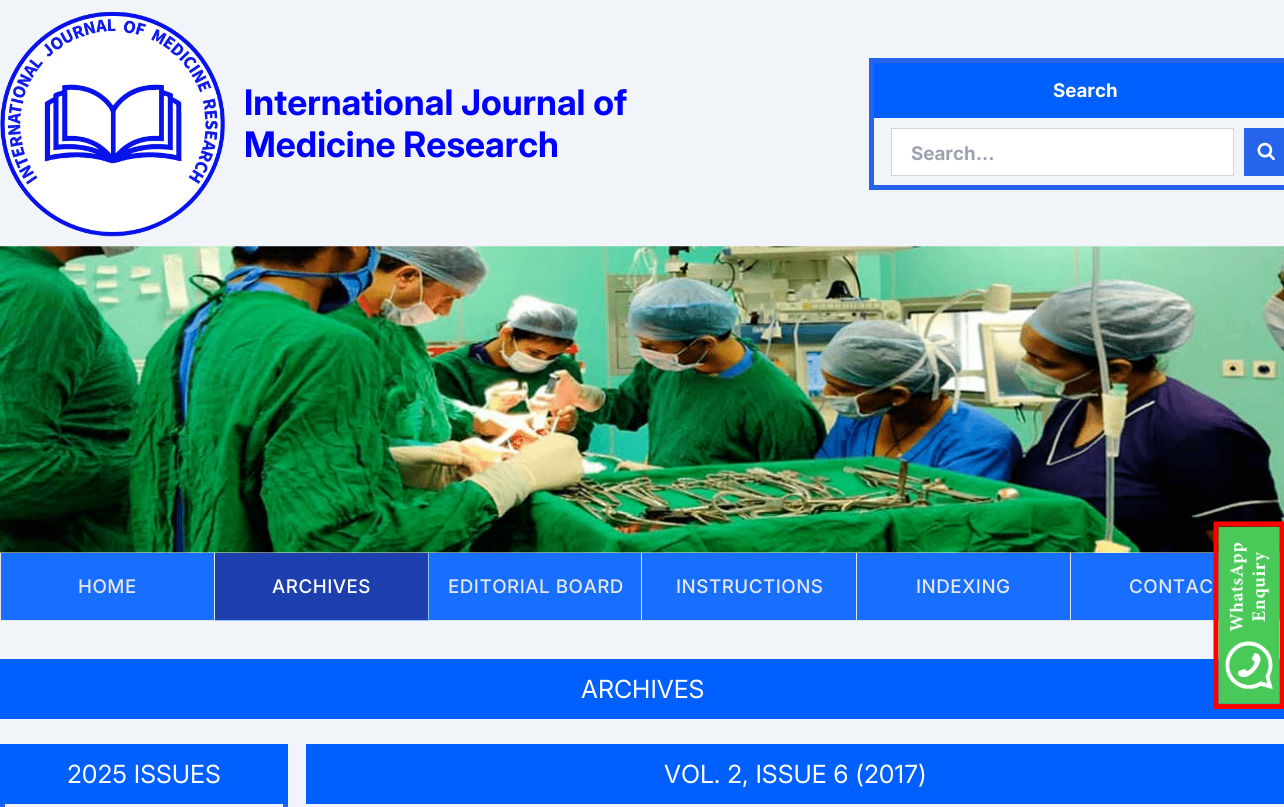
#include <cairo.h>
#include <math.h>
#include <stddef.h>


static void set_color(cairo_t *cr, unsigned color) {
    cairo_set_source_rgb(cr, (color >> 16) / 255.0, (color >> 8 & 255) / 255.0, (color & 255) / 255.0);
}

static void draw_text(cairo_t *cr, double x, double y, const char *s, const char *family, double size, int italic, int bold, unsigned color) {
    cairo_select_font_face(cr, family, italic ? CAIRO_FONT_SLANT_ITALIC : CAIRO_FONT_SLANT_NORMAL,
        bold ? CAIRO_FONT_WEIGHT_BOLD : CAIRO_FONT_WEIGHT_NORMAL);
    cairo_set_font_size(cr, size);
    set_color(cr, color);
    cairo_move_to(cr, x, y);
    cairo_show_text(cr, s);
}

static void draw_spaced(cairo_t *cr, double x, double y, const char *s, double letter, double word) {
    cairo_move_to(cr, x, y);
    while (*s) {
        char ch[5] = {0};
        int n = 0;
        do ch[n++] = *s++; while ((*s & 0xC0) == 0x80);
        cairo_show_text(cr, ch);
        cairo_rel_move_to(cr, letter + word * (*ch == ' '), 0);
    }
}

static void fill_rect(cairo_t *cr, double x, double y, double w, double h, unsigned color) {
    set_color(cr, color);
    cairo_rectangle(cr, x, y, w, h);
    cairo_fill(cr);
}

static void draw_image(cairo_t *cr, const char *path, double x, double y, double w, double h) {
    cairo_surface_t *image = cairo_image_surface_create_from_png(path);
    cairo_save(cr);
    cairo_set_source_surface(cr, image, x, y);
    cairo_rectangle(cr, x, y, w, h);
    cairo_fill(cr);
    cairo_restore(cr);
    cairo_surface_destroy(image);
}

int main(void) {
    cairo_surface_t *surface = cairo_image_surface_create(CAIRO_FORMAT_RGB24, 1284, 807);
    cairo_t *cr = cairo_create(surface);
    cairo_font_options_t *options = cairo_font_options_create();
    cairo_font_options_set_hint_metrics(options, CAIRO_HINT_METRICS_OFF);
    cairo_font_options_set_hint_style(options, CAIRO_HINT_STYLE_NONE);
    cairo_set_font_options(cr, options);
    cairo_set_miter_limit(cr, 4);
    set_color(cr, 0xF1F5F9);
    cairo_paint(cr);
    draw_image(cr, "assets/img1.png", 0, 12, 225, 225);
    draw_text(cr, 244, 115, "International Journal of", "Inter", 35.25, 0, 1, 0x0000FF);
    draw_text(cr, 244, 157, "Medicine Research", "Inter", 35.25, 0, 1, 0x0000FF);
    cairo_rectangle(cr, 871.5, 60.5, 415, 127);
    set_color(cr, 0x2563EB);
    cairo_set_line_width(cr, 5);
    cairo_stroke(cr);
    fill_rect(cr, 874, 63, 410, 55, 0x005FFF);
    draw_text(cr, 1053, 97, "Search", "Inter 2", 18.75, 0, 1, 0xFFFFFF);
    cairo_rectangle(cr, 891.5, 128.5, 342, 47);
    cairo_fill_preserve(cr);
    set_color(cr, 0xD1D5DB);
    cairo_set_line_width(cr, 1);
    cairo_stroke(cr);
    draw_text(cr, 911, 160, "Search...", "Inter 2", 18.75, 0, 1, 0x9CA3AF);
    fill_rect(cr, 1244, 128, 40, 48, 0x2563EB);
    draw_image(cr, "assets/img2.png", 1257, 142, 18, 19);
    draw_image(cr, "assets/img3.png", 0, 246, 1284, 307);
    fill_rect(cr, 1, 553, 1279, 67, 0x186EFE);
    fill_rect(cr, 214, 553, 1, 68, 0xE5E7EB);
    fill_rect(cr, 0, 620, 215, 1, 0xE5E7EB);
    fill_rect(cr, 0, 553, 1, 68, 0xE5E7EB);
    cairo_select_font_face(cr, "Inter Medium", CAIRO_FONT_SLANT_NORMAL, CAIRO_FONT_WEIGHT_NORMAL);
    draw_spaced(cr, 78, 593, "HOME", 0.5, 0);
    fill_rect(cr, 215, 553, 213, 67, 0x1E40AF);
    fill_rect(cr, 428, 553, 1, 68, 0x93C5FD);
    fill_rect(cr, 215, 620, 214, 1, 0x93C5FD);
    set_color(cr, 0xFFFFFF);
    draw_spaced(cr, 272, 593, "ARCHIVES", 0.5, 0);
    fill_rect(cr, 641, 553, 1, 68, 0xE5E7EB);
    fill_rect(cr, 429, 620, 214, 1, 0xE5E7EB);
    draw_spaced(cr, 448, 593, "EDITORIAL BOARD", 0.5, 0);
    fill_rect(cr, 856, 553, 1, 68, 0xE5E7EB);
    fill_rect(cr, 643, 620, 215, 1, 0xE5E7EB);
    draw_spaced(cr, 676, 593, "INSTRUCTIONS", 0.5, 0);
    fill_rect(cr, 1070, 553, 1, 68, 0xE5E7EB);
    fill_rect(cr, 858, 620, 426, 1, 0xE5E7EB);
    draw_spaced(cr, 916, 593, "INDEXING", 0.5, 0);
    draw_spaced(cr, 1129, 593, "CONTAC", 0.5, 0);
    fill_rect(cr, 0, 659, 1284, 60, 0x005FFF);
    draw_text(cr, 581, 698, "ARCHIVES", "Inter", 25, 0, 0, 0xFFFFFF);
    fill_rect(cr, 0, 744, 288, 60, 0x005FFF);
    draw_text(cr, 67, 783, "2025 ISSUES", "Inter", 25, 0, 0, 0xFFFFFF);
    fill_rect(cr, 283, 804, 5, 3, 0x2563EB);
    fill_rect(cr, 0, 804, 5, 3, 0x2563EB);
    fill_rect(cr, 306, 744, 978, 60, 0x005FFF);
    draw_text(cr, 664, 783, "VOL. 2, ISSUE 6 (2017)", "Inter", 25, 0, 0, 0xFFFFFF);
    cairo_new_path(cr);
    cairo_move_to(cr, 1216, 706.5);
    cairo_line_to(cr, 1216, 524);
    cairo_line_to(cr, 1282.5, 524);
    cairo_line_to(cr, 1282.5, 706.5);
    cairo_close_path(cr);
    set_color(cr, 0xFF0000);
    cairo_set_line_width(cr, 5);
    cairo_stroke(cr);
    draw_image(cr, "assets/img4.png", 1218, 526, 62, 179);
    cairo_surface_write_to_png(surface, "output.png");
    cairo_font_options_destroy(options);
    cairo_destroy(cr);
    cairo_surface_destroy(surface);
    return 0;
}
